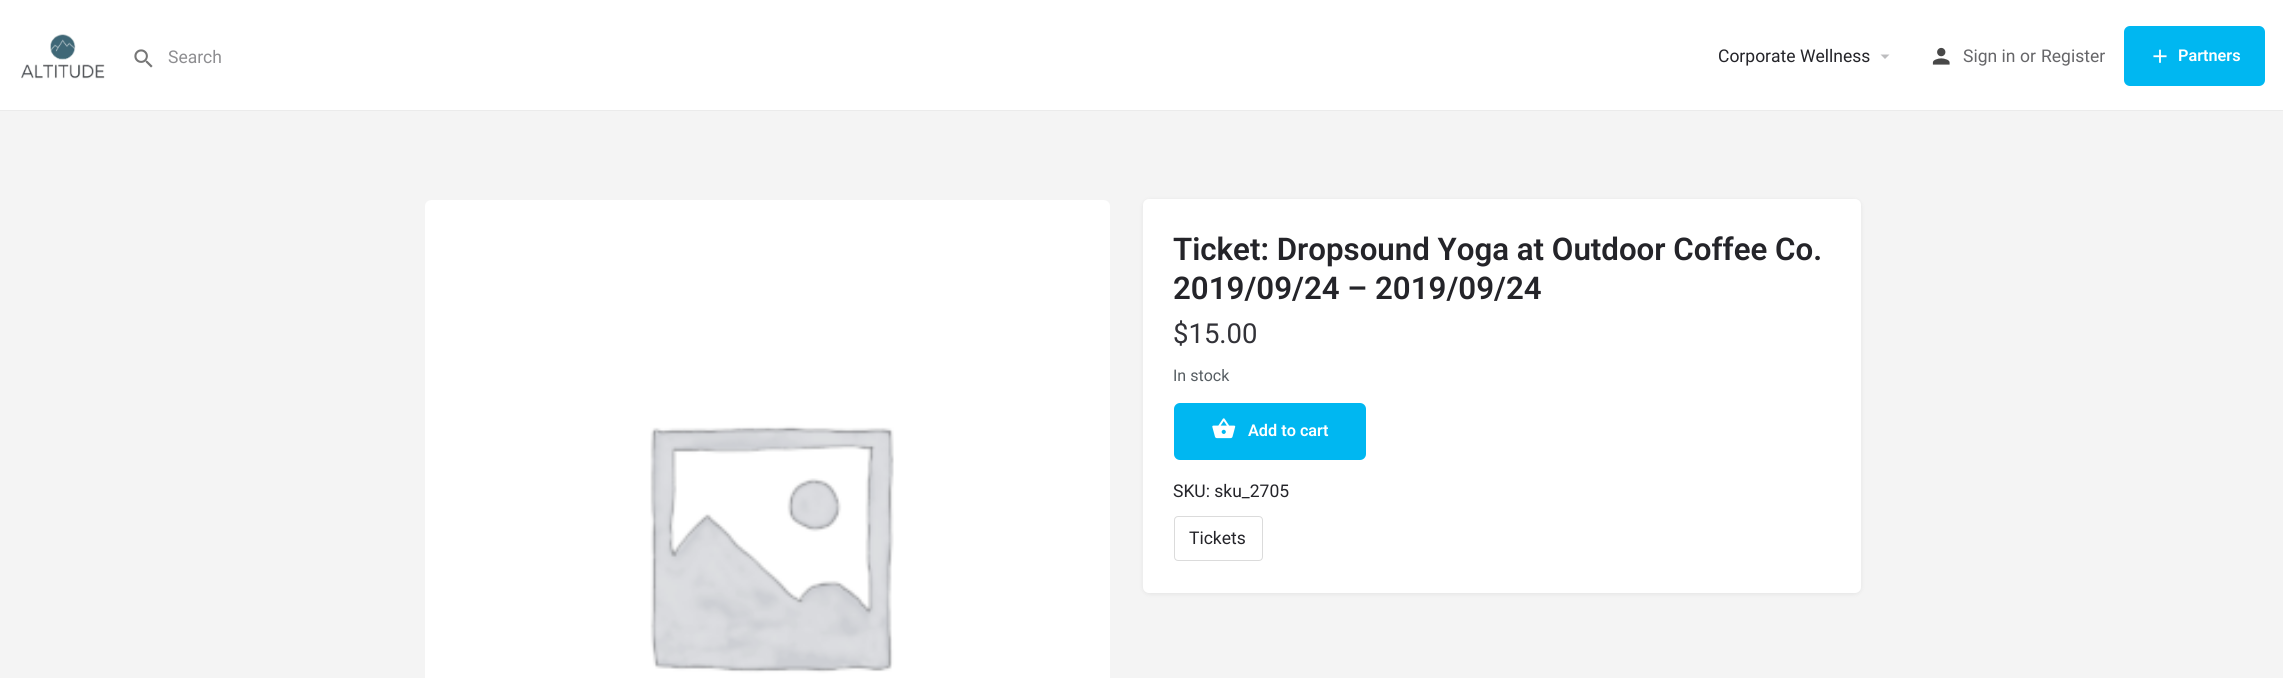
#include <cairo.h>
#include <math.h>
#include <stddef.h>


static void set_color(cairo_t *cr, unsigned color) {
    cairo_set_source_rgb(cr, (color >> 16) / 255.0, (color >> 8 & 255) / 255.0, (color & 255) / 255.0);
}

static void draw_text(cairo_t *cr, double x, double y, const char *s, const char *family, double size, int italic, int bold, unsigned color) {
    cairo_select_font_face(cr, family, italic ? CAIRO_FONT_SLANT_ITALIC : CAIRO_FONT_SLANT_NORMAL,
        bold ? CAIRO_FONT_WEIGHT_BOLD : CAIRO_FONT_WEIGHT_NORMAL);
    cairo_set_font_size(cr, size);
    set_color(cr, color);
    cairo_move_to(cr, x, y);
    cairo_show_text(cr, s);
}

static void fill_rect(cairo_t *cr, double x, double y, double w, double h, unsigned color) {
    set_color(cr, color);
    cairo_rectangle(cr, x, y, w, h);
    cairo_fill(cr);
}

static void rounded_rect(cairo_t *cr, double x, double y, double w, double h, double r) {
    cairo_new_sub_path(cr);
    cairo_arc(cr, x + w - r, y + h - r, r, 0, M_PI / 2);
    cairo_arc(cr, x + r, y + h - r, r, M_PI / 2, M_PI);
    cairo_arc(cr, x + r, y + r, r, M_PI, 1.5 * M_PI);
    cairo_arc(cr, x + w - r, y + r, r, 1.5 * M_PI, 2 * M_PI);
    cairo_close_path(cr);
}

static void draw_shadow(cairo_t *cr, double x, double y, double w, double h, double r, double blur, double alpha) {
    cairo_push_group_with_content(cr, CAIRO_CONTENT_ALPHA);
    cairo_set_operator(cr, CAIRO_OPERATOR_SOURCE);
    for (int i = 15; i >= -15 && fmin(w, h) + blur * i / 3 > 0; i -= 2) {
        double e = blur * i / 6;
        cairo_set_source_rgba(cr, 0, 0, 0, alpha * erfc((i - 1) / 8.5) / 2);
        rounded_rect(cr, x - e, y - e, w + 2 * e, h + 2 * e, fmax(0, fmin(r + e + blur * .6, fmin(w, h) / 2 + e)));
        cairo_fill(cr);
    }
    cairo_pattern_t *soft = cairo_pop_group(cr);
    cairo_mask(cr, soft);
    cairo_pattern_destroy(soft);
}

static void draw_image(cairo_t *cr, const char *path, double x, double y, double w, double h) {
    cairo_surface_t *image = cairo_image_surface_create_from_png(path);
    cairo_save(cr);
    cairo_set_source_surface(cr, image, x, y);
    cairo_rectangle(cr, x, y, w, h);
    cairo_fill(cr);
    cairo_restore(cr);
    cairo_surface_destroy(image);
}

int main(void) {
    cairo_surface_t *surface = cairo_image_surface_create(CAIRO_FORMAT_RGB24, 2283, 678);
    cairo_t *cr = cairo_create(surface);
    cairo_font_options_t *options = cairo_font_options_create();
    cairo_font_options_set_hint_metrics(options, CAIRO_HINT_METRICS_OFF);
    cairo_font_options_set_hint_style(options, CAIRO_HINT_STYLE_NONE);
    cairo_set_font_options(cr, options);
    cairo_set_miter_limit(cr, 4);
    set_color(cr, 0xF4F4F4);
    cairo_paint(cr);
    fill_rect(cr, 0, 0, 2283, 110, 0xFFFFFF);
    fill_rect(cr, 0, 110, 2283, 1, 0xEBEBEB);
    draw_image(cr, "assets/img1.png", 21, 34, 84, 45);
    draw_image(cr, "assets/img2.png", 134, 49, 19, 19);
    draw_text(cr, 168, 63, "Search", "Roboto", 17.5, 0, 0, 0x8E8E91);
    draw_text(cr, 1718, 62, "Corporate Wellness", "Roboto", 17.5, 0, 0, 0x242429);
    set_color(cr, 0xBDBDBF);
    cairo_new_path(cr);
    cairo_move_to(cr, 1880.5, 54.5);
    cairo_line_to(cr, 1889.5, 54.5);
    cairo_line_to(cr, 1885, 59);
    cairo_close_path(cr);
    cairo_fill(cr);
    draw_image(cr, "assets/img3.png", 1932, 47, 18, 18);
    draw_text(cr, 1963, 62, "Sign in", "Roboto", 17.5, 0, 0, 0x666669);
    draw_text(cr, 2020, 62, "or", "Roboto", 17.5, 0, 0, 0x666669);
    draw_text(cr, 2041, 62, "Register", "Roboto", 17.5, 0, 0, 0x666669);
    set_color(cr, 0x00B7F1);
    rounded_rect(cr, 2124, 26, 141, 60, 6);
    cairo_fill(cr);
    draw_image(cr, "assets/img4.png", 2153, 49, 14, 14);
    draw_text(cr, 2178, 61, "Partners", "Roboto SemiBold", 16.25, 0, 0, 0xFFFFFF);
    draw_image(cr, "assets/img5.png", 425, 200, 685, 478);
    set_color(cr, 0x000000);
    draw_shadow(cr, 1143, 200, 718, 394, 6, 2.5, 0.07);
    set_color(cr, 0xFFFFFF);
    rounded_rect(cr, 1143, 199, 718, 394, 6);
    cairo_fill(cr);
    draw_text(cr, 1173, 260, "Ticket: Dropsound Yoga at Outdoor Coffee Co.", "Roboto SemiBold", 31.25, 0, 0, 0x242429);
    draw_text(cr, 1173, 299, "2019/09/24 – 2019/09/24", "Roboto SemiBold", 31.25, 0, 0, 0x242429);
    draw_text(cr, 1173, 343, "$15.00", "Roboto", 27.5, 0, 0, 0x323238);
    draw_text(cr, 1173, 381, "In stock", "Roboto", 16, 0, 0, 0x565D62);
    set_color(cr, 0x00B7F1);
    rounded_rect(cr, 1174, 403, 192, 57, 6);
    cairo_fill(cr);
    draw_image(cr, "assets/img6.png", 1212, 418, 24, 21);
    draw_text(cr, 1248, 436, "Add to cart", "Roboto SemiBold", 16.25, 0, 0, 0xFFFFFF);
    draw_text(cr, 1173, 497, "SKU: sku_2705", "Roboto", 17.5, 0, 0, 0x242429);
    rounded_rect(cr, 1174.5, 516.5, 88, 44, 3.5);
    set_color(cr, 0xDBDBDB);
    cairo_set_line_width(cr, 1);
    cairo_stroke(cr);
    draw_text(cr, 1189, 544, "Tickets", "Roboto", 17.5, 0, 0, 0x242429);
    cairo_surface_write_to_png(surface, "output.png");
    cairo_font_options_destroy(options);
    cairo_destroy(cr);
    cairo_surface_destroy(surface);
    return 0;
}
